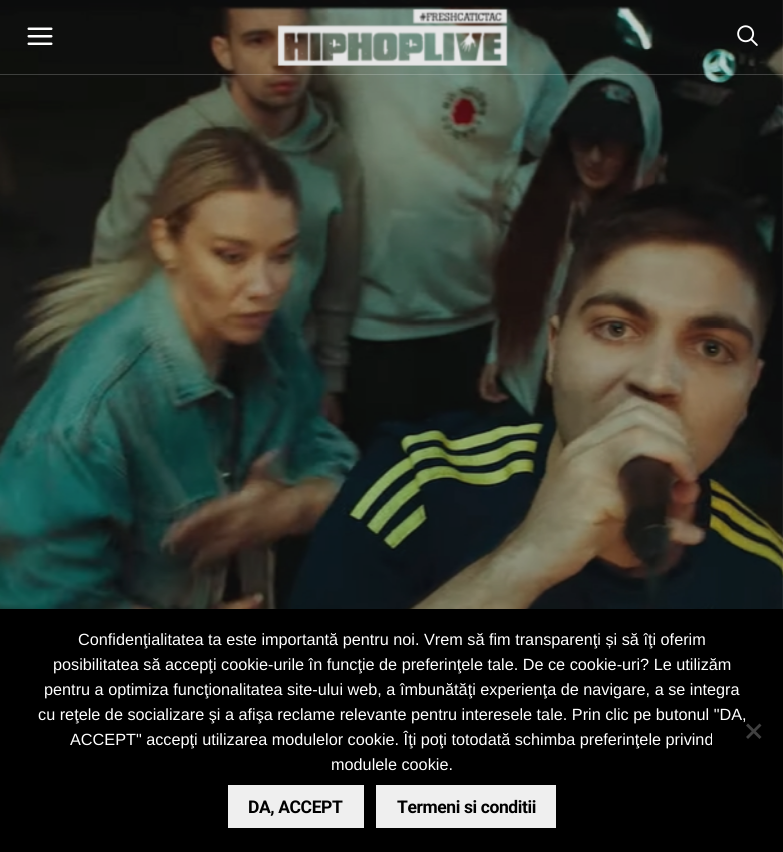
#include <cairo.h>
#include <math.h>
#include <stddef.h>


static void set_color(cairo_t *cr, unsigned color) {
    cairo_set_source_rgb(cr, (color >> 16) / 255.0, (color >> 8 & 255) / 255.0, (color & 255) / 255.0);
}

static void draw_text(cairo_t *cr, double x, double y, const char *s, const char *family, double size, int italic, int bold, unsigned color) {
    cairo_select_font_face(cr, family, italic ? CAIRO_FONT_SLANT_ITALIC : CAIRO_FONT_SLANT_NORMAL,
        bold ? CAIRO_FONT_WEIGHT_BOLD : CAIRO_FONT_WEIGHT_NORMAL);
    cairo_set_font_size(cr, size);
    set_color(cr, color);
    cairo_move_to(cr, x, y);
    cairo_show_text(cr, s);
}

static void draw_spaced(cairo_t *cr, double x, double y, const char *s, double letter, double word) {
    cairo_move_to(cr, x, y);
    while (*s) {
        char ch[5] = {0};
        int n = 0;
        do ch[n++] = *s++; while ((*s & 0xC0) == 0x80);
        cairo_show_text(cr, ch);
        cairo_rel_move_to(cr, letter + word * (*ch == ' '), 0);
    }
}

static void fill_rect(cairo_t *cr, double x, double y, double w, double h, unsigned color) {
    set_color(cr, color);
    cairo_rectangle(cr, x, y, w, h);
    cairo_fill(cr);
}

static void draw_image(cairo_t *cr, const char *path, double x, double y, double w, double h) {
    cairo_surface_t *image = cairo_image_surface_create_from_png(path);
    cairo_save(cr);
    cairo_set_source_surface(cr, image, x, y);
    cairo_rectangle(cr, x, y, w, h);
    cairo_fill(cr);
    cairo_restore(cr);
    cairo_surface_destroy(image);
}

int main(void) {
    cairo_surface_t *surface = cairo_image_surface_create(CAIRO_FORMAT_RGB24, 783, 852);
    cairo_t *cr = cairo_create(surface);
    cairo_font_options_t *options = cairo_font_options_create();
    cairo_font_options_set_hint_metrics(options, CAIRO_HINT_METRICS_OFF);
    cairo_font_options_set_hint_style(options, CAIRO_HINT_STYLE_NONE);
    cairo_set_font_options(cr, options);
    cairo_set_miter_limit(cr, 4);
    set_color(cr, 0xFFFFFF);
    cairo_paint(cr);
    draw_image(cr, "assets/img1.png", 0, 0, 783, 609);
    cairo_set_source_rgba(cr, 1, 1, 1, 0.2);
    cairo_rectangle(cr, 0, 74, 783, 1);
    cairo_fill(cr);
    draw_image(cr, "assets/img2.png", 27, 27, 26, 18);
    draw_image(cr, "assets/img3.png", 277, 8, 231, 58);
    draw_image(cr, "assets/img4.png", 737, 25, 21, 21);
    fill_rect(cr, 0, 609, 783, 243, 0x000000);
    draw_text(cr, 78, 645, "Confidenţialitatea ta este importantă pentru noi. Vrem să fim transparenţi și să îţi oferim", "Liberation Sans", 16.25, 0, 0, 0xFFFFFF);
    draw_text(cr, 53, 670, "posibilitatea să accepţi cookie-urile în funcţie de preferinţele tale. De ce cookie-uri? Le utilizăm", "Liberation Sans", 16.25, 0, 0, 0xFFFFFF);
    draw_text(cr, 44, 695, "pentru a optimiza funcţionalitatea site-ului web, a îmbunătăţi experienţa de navigare, a se integra", "Liberation Sans", 16.25, 0, 0, 0xFFFFFF);
    draw_text(cr, 38, 720, "cu reţele de socializare şi a afişa reclame relevante pentru interesele tale. Prin clic pe butonul \"DA,", "Liberation Sans", 16.25, 0, 0, 0xFFFFFF);
    draw_text(cr, 70, 745, "ACCEPT\" accepţi utilizarea modulelor cookie. Îţi poţi totodată schimba preferinţele privind", "Liberation Sans", 16.25, 0, 0, 0xFFFFFF);
    draw_text(cr, 331, 770, "modulele cookie.", "Liberation Sans", 16.25, 0, 0, 0xFFFFFF);
    set_color(cr, 0x404040);
    cairo_new_path(cr);
    cairo_move_to(cr, 759.5, 723.5);
    cairo_line_to(cr, 761.5, 725.5);
    cairo_line_to(cr, 748, 739);
    cairo_line_to(cr, 746, 737);
    cairo_close_path(cr);
    cairo_fill(cr);
    cairo_new_path(cr);
    cairo_move_to(cr, 746, 725.5);
    cairo_line_to(cr, 748, 723.5);
    cairo_line_to(cr, 761.5, 737);
    cairo_line_to(cr, 759.5, 739);
    cairo_close_path(cr);
    cairo_fill(cr);
    fill_rect(cr, 228, 785, 136, 43, 0xEFEFEF);
    cairo_select_font_face(cr, "Roboto", CAIRO_FONT_SLANT_NORMAL, CAIRO_FONT_WEIGHT_BOLD);
    cairo_set_font_size(cr, 17.5);
    set_color(cr, 0x000000);
    draw_spaced(cr, 248, 813, "DA, ACCEPT", -0.4, 0);
    fill_rect(cr, 376, 785, 180, 43, 0xEFEFEF);
    set_color(cr, 0x000000);
    draw_spaced(cr, 397, 813, "Termeni si conditii", -0.4, 0);
    cairo_surface_write_to_png(surface, "output.png");
    cairo_font_options_destroy(options);
    cairo_destroy(cr);
    cairo_surface_destroy(surface);
    return 0;
}
